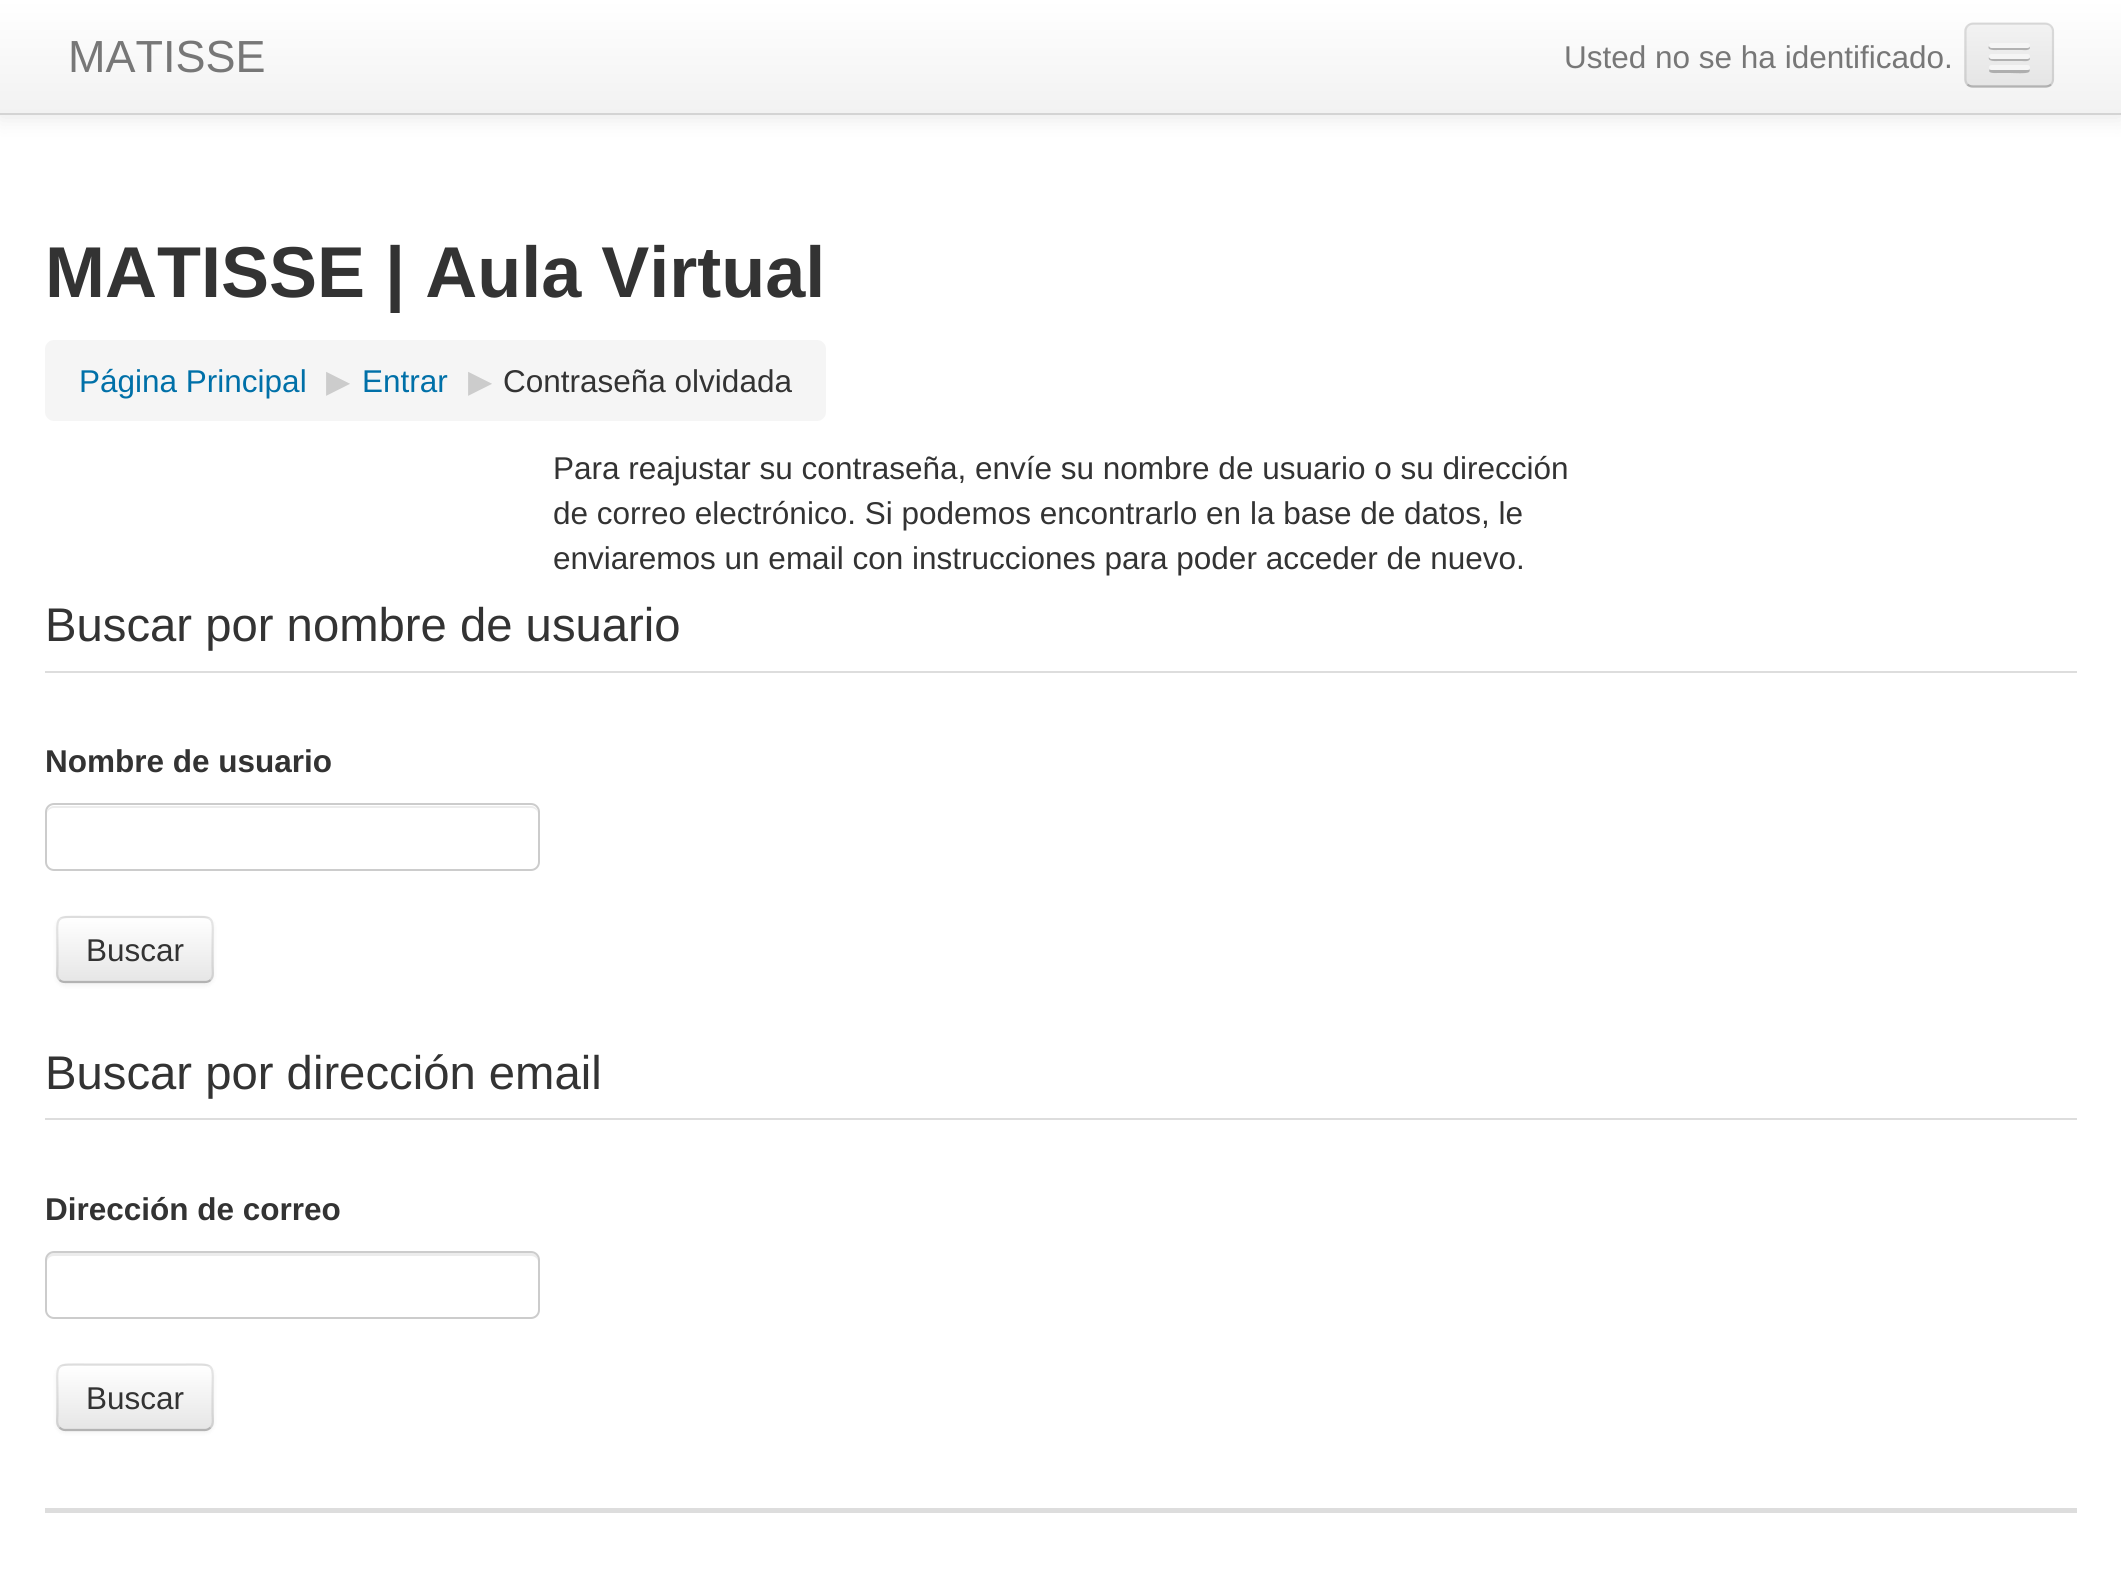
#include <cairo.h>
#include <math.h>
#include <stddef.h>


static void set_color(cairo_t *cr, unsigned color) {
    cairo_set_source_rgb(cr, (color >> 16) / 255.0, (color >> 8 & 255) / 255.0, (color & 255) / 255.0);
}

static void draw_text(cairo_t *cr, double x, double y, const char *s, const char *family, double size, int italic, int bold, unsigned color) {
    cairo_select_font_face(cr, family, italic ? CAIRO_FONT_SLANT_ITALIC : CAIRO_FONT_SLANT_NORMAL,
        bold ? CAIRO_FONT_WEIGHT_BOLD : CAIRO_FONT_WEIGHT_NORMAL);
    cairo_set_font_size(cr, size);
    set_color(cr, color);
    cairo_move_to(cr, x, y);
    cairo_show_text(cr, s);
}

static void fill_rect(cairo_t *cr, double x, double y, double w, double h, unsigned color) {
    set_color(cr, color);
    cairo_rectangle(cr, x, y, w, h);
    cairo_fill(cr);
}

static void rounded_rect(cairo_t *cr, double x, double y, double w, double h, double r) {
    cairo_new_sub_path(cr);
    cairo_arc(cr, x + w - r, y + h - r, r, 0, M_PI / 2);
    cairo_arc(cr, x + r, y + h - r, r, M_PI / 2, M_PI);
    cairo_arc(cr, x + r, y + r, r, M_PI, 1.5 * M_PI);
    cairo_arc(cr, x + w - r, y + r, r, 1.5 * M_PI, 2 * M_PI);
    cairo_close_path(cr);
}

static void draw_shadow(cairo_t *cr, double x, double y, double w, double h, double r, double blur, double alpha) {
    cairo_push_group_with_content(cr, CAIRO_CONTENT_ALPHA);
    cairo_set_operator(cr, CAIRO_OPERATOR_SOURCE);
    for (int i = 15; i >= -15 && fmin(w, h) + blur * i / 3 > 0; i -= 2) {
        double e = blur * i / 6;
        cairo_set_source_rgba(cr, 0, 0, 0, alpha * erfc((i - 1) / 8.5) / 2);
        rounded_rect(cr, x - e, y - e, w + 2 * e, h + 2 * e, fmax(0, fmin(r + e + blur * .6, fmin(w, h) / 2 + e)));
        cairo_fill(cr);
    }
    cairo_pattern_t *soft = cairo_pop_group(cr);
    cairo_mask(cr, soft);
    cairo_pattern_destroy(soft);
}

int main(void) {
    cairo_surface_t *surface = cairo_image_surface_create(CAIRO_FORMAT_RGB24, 2121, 1590);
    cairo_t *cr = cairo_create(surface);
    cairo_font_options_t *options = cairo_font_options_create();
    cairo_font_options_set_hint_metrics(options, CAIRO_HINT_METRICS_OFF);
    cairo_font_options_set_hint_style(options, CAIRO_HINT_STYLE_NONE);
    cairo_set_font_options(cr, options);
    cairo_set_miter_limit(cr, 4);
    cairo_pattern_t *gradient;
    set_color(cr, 0xFFFFFF);
    cairo_paint(cr);
    set_color(cr, 0x000000);
    draw_shadow(cr, 0, 2, 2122, 115, 0, 11, 0.1);
    gradient = cairo_pattern_create_linear(1061, 0, 1061, 113);
    cairo_pattern_add_color_stop_rgba(gradient, 0, 1, 1, 1, 1);
    cairo_pattern_add_color_stop_rgba(gradient, 1, 0.949, 0.949, 0.949, 1);
    cairo_set_source(cr, gradient);
    cairo_pattern_destroy(gradient);
    cairo_rectangle(cr, 0, 0, 2121, 113);
    cairo_fill(cr);
    fill_rect(cr, 0, 113, 2121, 2, 0xD4D4D4);
    draw_text(cr, 68, 72, "MATISSE", "Liberation Sans", 45, 0, 0, 0x777777);
    draw_text(cr, 1564, 68, "Usted no se ha identificado.", "Liberation Sans", 31.5, 0, 0, 0x777777);
    set_color(cr, 0xEDEDED);
    rounded_rect(cr, 1964, 23, 90, 65, 9);
    cairo_fill(cr);
    cairo_save(cr);
    rounded_rect(cr, 1964, 23, 90, 65, 9);
    cairo_clip(cr);
    gradient = cairo_pattern_create_linear(2009, 25, 2009, 86);
    cairo_pattern_add_color_stop_rgba(gradient, 0, 0.949, 0.949, 0.949, 1);
    cairo_pattern_add_color_stop_rgba(gradient, 1, 0.898, 0.898, 0.898, 1);
    cairo_set_source(cr, gradient);
    cairo_pattern_destroy(gradient);
    cairo_rectangle(cr, 1964, 25, 90, 61);
    cairo_fill(cr);
    cairo_restore(cr);
    cairo_new_path(cr);
    cairo_move_to(cr, 2051, 84.5);
    cairo_curve_to(cr, 2049.5, 86, 2047.5, 86.5, 2045, 86.5);
    cairo_line_to(cr, 1973, 86.5);
    cairo_curve_to(cr, 1971, 86.5, 1969, 86, 1967.5, 84.5);
    cairo_set_source_rgba(cr, 0, 0, 0, 0.25);
    cairo_set_line_width(cr, 2.2);
    cairo_stroke(cr);
    cairo_new_path(cr);
    cairo_move_to(cr, 1967.5, 84.5);
    cairo_curve_to(cr, 1966, 83, 1965.5, 81, 1965.5, 79);
    cairo_line_to(cr, 1965.5, 31.5);
    cairo_curve_to(cr, 1965.5, 29.5, 1966, 27.5, 1967.5, 26);
    cairo_curve_to(cr, 1969, 24.5, 1971, 23.5, 1973, 23.5);
    cairo_line_to(cr, 2045, 23.5);
    cairo_curve_to(cr, 2047.5, 23.5, 2049.5, 24.5, 2051, 26);
    cairo_curve_to(cr, 2052.5, 27.5, 2053, 29.5, 2053, 31.5);
    cairo_line_to(cr, 2053, 79);
    cairo_curve_to(cr, 2053, 81, 2052.5, 83, 2051, 84.5);
    cairo_set_source_rgba(cr, 0, 0, 0, 0.1);
    cairo_stroke(cr);
    set_color(cr, 0xB2B2B2);
    cairo_new_path(cr);
    cairo_move_to(cr, 1989, 46);
    cairo_curve_to(cr, 1986, 51, 1997, 50, 1998, 50);
    cairo_line_to(cr, 2022, 50);
    cairo_curve_to(cr, 2023, 50, 2029, 51, 2030, 48);
    cairo_line_to(cr, 2029, 46);
    cairo_line_to(cr, 2028, 47);
    cairo_line_to(cr, 1991, 47);
    cairo_close_path(cr);
    cairo_fill(cr);
    set_color(cr, 0xF5F5F5);
    rounded_rect(cr, 1989, 43, 41, 5, 2.5);
    cairo_fill(cr);
    set_color(cr, 0xB0B0B0);
    cairo_new_path(cr);
    cairo_move_to(cr, 1989, 57);
    cairo_curve_to(cr, 1987, 62, 1997, 61, 1998, 61);
    cairo_line_to(cr, 2022, 61);
    cairo_curve_to(cr, 2023, 61, 2029, 62, 2030, 59);
    cairo_line_to(cr, 2029, 57);
    cairo_curve_to(cr, 2029, 58, 2028, 58, 2027, 58);
    cairo_line_to(cr, 1991, 58);
    cairo_curve_to(cr, 1990, 58, 1990, 58, 1989, 57);
    cairo_close_path(cr);
    cairo_fill(cr);
    set_color(cr, 0xF5F5F5);
    rounded_rect(cr, 1989, 54, 41, 5, 2.5);
    cairo_fill(cr);
    set_color(cr, 0xAEAEAE);
    cairo_new_path(cr);
    cairo_move_to(cr, 1990, 69);
    cairo_curve_to(cr, 1986, 74, 1997, 73, 1998, 73);
    cairo_line_to(cr, 2010, 73);
    cairo_curve_to(cr, 2013, 73, 2027, 74, 2029, 72);
    cairo_curve_to(cr, 2030, 71, 2030, 70, 2029, 69);
    cairo_line_to(cr, 2028, 70);
    cairo_line_to(cr, 1991, 70);
    cairo_close_path(cr);
    cairo_fill(cr);
    set_color(cr, 0xF5F5F5);
    rounded_rect(cr, 1989, 65, 41, 5, 2.5);
    cairo_fill(cr);
    draw_text(cr, 45, 297, "MATISSE | Aula Virtual", "Liberation Sans", 72, 0, 1, 0x333333);
    set_color(cr, 0xF5F5F5);
    rounded_rect(cr, 45, 340, 781, 81, 9);
    cairo_fill(cr);
    draw_text(cr, 79, 392, "Página Principal", "Liberation Sans", 31.5, 0, 0, 0x0070A8);
    draw_text(cr, 326, 392, "▶", "DejaVu Sans", 31.5, 0, 0, 0xCCCCCC);
    draw_text(cr, 362, 392, "Entrar", "Liberation Sans", 31.5, 0, 0, 0x0070A8);
    draw_text(cr, 468, 392, "▶", "DejaVu Sans", 31.5, 0, 0, 0xCCCCCC);
    draw_text(cr, 503, 392, "Contraseña olvidada", "Liberation Sans", 31.5, 0, 0, 0x333333);
    draw_text(cr, 553, 479, "Para reajustar su contraseña, envíe su nombre de usuario o su dirección", "Liberation Sans", 31.5, 0, 0, 0x333333);
    draw_text(cr, 553, 524, "de correo electrónico. Si podemos encontrarlo en la base de datos, le", "Liberation Sans", 31.5, 0, 0, 0x333333);
    draw_text(cr, 553, 569, "enviaremos un email con instrucciones para poder acceder de nuevo.", "Liberation Sans", 31.5, 0, 0, 0x333333);
    fill_rect(cr, 45, 671, 2032, 2, 0xDDDDDD);
    draw_text(cr, 45, 641, "Buscar por nombre de usuario", "Liberation Sans", 47.25, 0, 0, 0x333333);
    draw_text(cr, 45, 772, "Nombre de usuario", "Liberation Sans", 31.5, 0, 1, 0x333333);
    set_color(cr, 0xECECEC);
    cairo_new_path(cr);
    cairo_move_to(cr, 54, 808);
    cairo_line_to(cr, 531, 808);
    cairo_curve_to(cr, 535, 808, 538, 811, 538, 814);
    cairo_line_to(cr, 538, 813);
    cairo_curve_to(cr, 538, 809, 535, 806, 531, 806);
    cairo_line_to(cr, 54, 806);
    cairo_curve_to(cr, 50, 806, 47, 809, 47, 813);
    cairo_line_to(cr, 47, 814);
    cairo_curve_to(cr, 47, 811, 50, 808, 54, 808);
    cairo_close_path(cr);
    cairo_fill(cr);
    rounded_rect(cr, 46, 804, 493, 66, 8);
    set_color(cr, 0xCCCCCC);
    cairo_set_line_width(cr, 2);
    cairo_stroke(cr);
    set_color(cr, 0x000000);
    draw_shadow(cr, 56, 918, 158, 68, 9, 2, 0.05);
    set_color(cr, 0xF5F5F5);
    rounded_rect(cr, 56, 916, 158, 67, 9);
    cairo_fill(cr);
    cairo_save(cr);
    rounded_rect(cr, 56, 916, 158, 67, 9);
    cairo_clip(cr);
    gradient = cairo_pattern_create_linear(135, 918, 135, 981);
    cairo_pattern_add_color_stop_rgba(gradient, 0, 1, 1, 1, 1);
    cairo_pattern_add_color_stop_rgba(gradient, 1, 0.902, 0.902, 0.902, 1);
    cairo_set_source(cr, gradient);
    cairo_pattern_destroy(gradient);
    cairo_rectangle(cr, 56, 918, 158, 63);
    cairo_fill(cr);
    cairo_restore(cr);
    cairo_new_path(cr);
    cairo_move_to(cr, 210.5, 980);
    cairo_curve_to(cr, 209, 981.5, 207, 982, 205, 982);
    cairo_line_to(cr, 65, 982);
    cairo_curve_to(cr, 63, 982, 61, 981.5, 59.5, 980);
    set_color(cr, 0xB3B3B3);
    cairo_set_line_width(cr, 2.2);
    cairo_stroke(cr);
    cairo_new_path(cr);
    cairo_move_to(cr, 59.5, 980);
    cairo_curve_to(cr, 56, 976.5, 57.5, 970.5, 57.5, 966);
    cairo_line_to(cr, 57.5, 949.5);
    cairo_curve_to(cr, 57.5, 913, 52, 917, 88.5, 917);
    cairo_line_to(cr, 181.5, 917);
    cairo_curve_to(cr, 218, 917, 212.5, 913, 212.5, 949.5);
    cairo_line_to(cr, 212.5, 966);
    cairo_curve_to(cr, 212.5, 970.5, 214, 976.5, 210.5, 980);
    cairo_set_source_rgba(cr, 0, 0, 0, 0.1);
    cairo_stroke(cr);
    draw_text(cr, 86, 961, "Buscar", "Liberation Sans", 31.5, 0, 0, 0x333333);
    fill_rect(cr, 45, 1118, 2032, 2, 0xDDDDDD);
    draw_text(cr, 45, 1089, "Buscar por dirección email", "Liberation Sans", 47.25, 0, 0, 0x333333);
    draw_text(cr, 45, 1220, "Dirección de correo", "Liberation Sans", 31.5, 0, 1, 0x333333);
    set_color(cr, 0xECECEC);
    cairo_new_path(cr);
    cairo_move_to(cr, 54, 1256);
    cairo_line_to(cr, 531, 1256);
    cairo_curve_to(cr, 535, 1256, 538, 1259, 538, 1262);
    cairo_line_to(cr, 538, 1260);
    cairo_curve_to(cr, 538, 1256, 535, 1253, 531, 1253);
    cairo_line_to(cr, 54, 1253);
    cairo_curve_to(cr, 50, 1253, 47, 1256, 47, 1260);
    cairo_line_to(cr, 47, 1262);
    cairo_curve_to(cr, 47, 1259, 50, 1256, 54, 1256);
    cairo_close_path(cr);
    cairo_fill(cr);
    rounded_rect(cr, 46, 1252, 493, 66, 8);
    set_color(cr, 0xCCCCCC);
    cairo_set_line_width(cr, 2);
    cairo_stroke(cr);
    set_color(cr, 0x000000);
    draw_shadow(cr, 56, 1366, 158, 67, 9, 2, 0.05);
    set_color(cr, 0xF5F5F5);
    rounded_rect(cr, 56, 1364, 158, 67, 9);
    cairo_fill(cr);
    cairo_save(cr);
    rounded_rect(cr, 56, 1364, 158, 67, 9);
    cairo_clip(cr);
    gradient = cairo_pattern_create_linear(135, 1366, 135, 1429);
    cairo_pattern_add_color_stop_rgba(gradient, 0, 1, 1, 1, 1);
    cairo_pattern_add_color_stop_rgba(gradient, 1, 0.902, 0.902, 0.902, 1);
    cairo_set_source(cr, gradient);
    cairo_pattern_destroy(gradient);
    cairo_rectangle(cr, 56, 1366, 158, 63);
    cairo_fill(cr);
    cairo_restore(cr);
    cairo_new_path(cr);
    cairo_move_to(cr, 210.5, 1427.5);
    cairo_curve_to(cr, 209, 1429, 207, 1430, 205, 1430);
    cairo_line_to(cr, 65, 1430);
    cairo_curve_to(cr, 63, 1430, 61, 1429, 59.5, 1427.5);
    set_color(cr, 0xB3B3B3);
    cairo_set_line_width(cr, 2.2);
    cairo_stroke(cr);
    cairo_new_path(cr);
    cairo_move_to(cr, 59.5, 1427.5);
    cairo_curve_to(cr, 56, 1424, 57.5, 1418, 57.5, 1414);
    cairo_line_to(cr, 57.5, 1397);
    cairo_curve_to(cr, 57.5, 1361, 52, 1364.5, 88.5, 1364.5);
    cairo_line_to(cr, 181.5, 1364.5);
    cairo_curve_to(cr, 218, 1364.5, 212.5, 1361, 212.5, 1397);
    cairo_line_to(cr, 212.5, 1414);
    cairo_curve_to(cr, 212.5, 1418, 214, 1424, 210.5, 1427.5);
    cairo_set_source_rgba(cr, 0, 0, 0, 0.1);
    cairo_stroke(cr);
    draw_text(cr, 86, 1409, "Buscar", "Liberation Sans", 31.5, 0, 0, 0x333333);
    fill_rect(cr, 45, 1508, 2032, 5, 0xDDDDDD);
    cairo_surface_write_to_png(surface, "output.png");
    cairo_font_options_destroy(options);
    cairo_destroy(cr);
    cairo_surface_destroy(surface);
    return 0;
}
